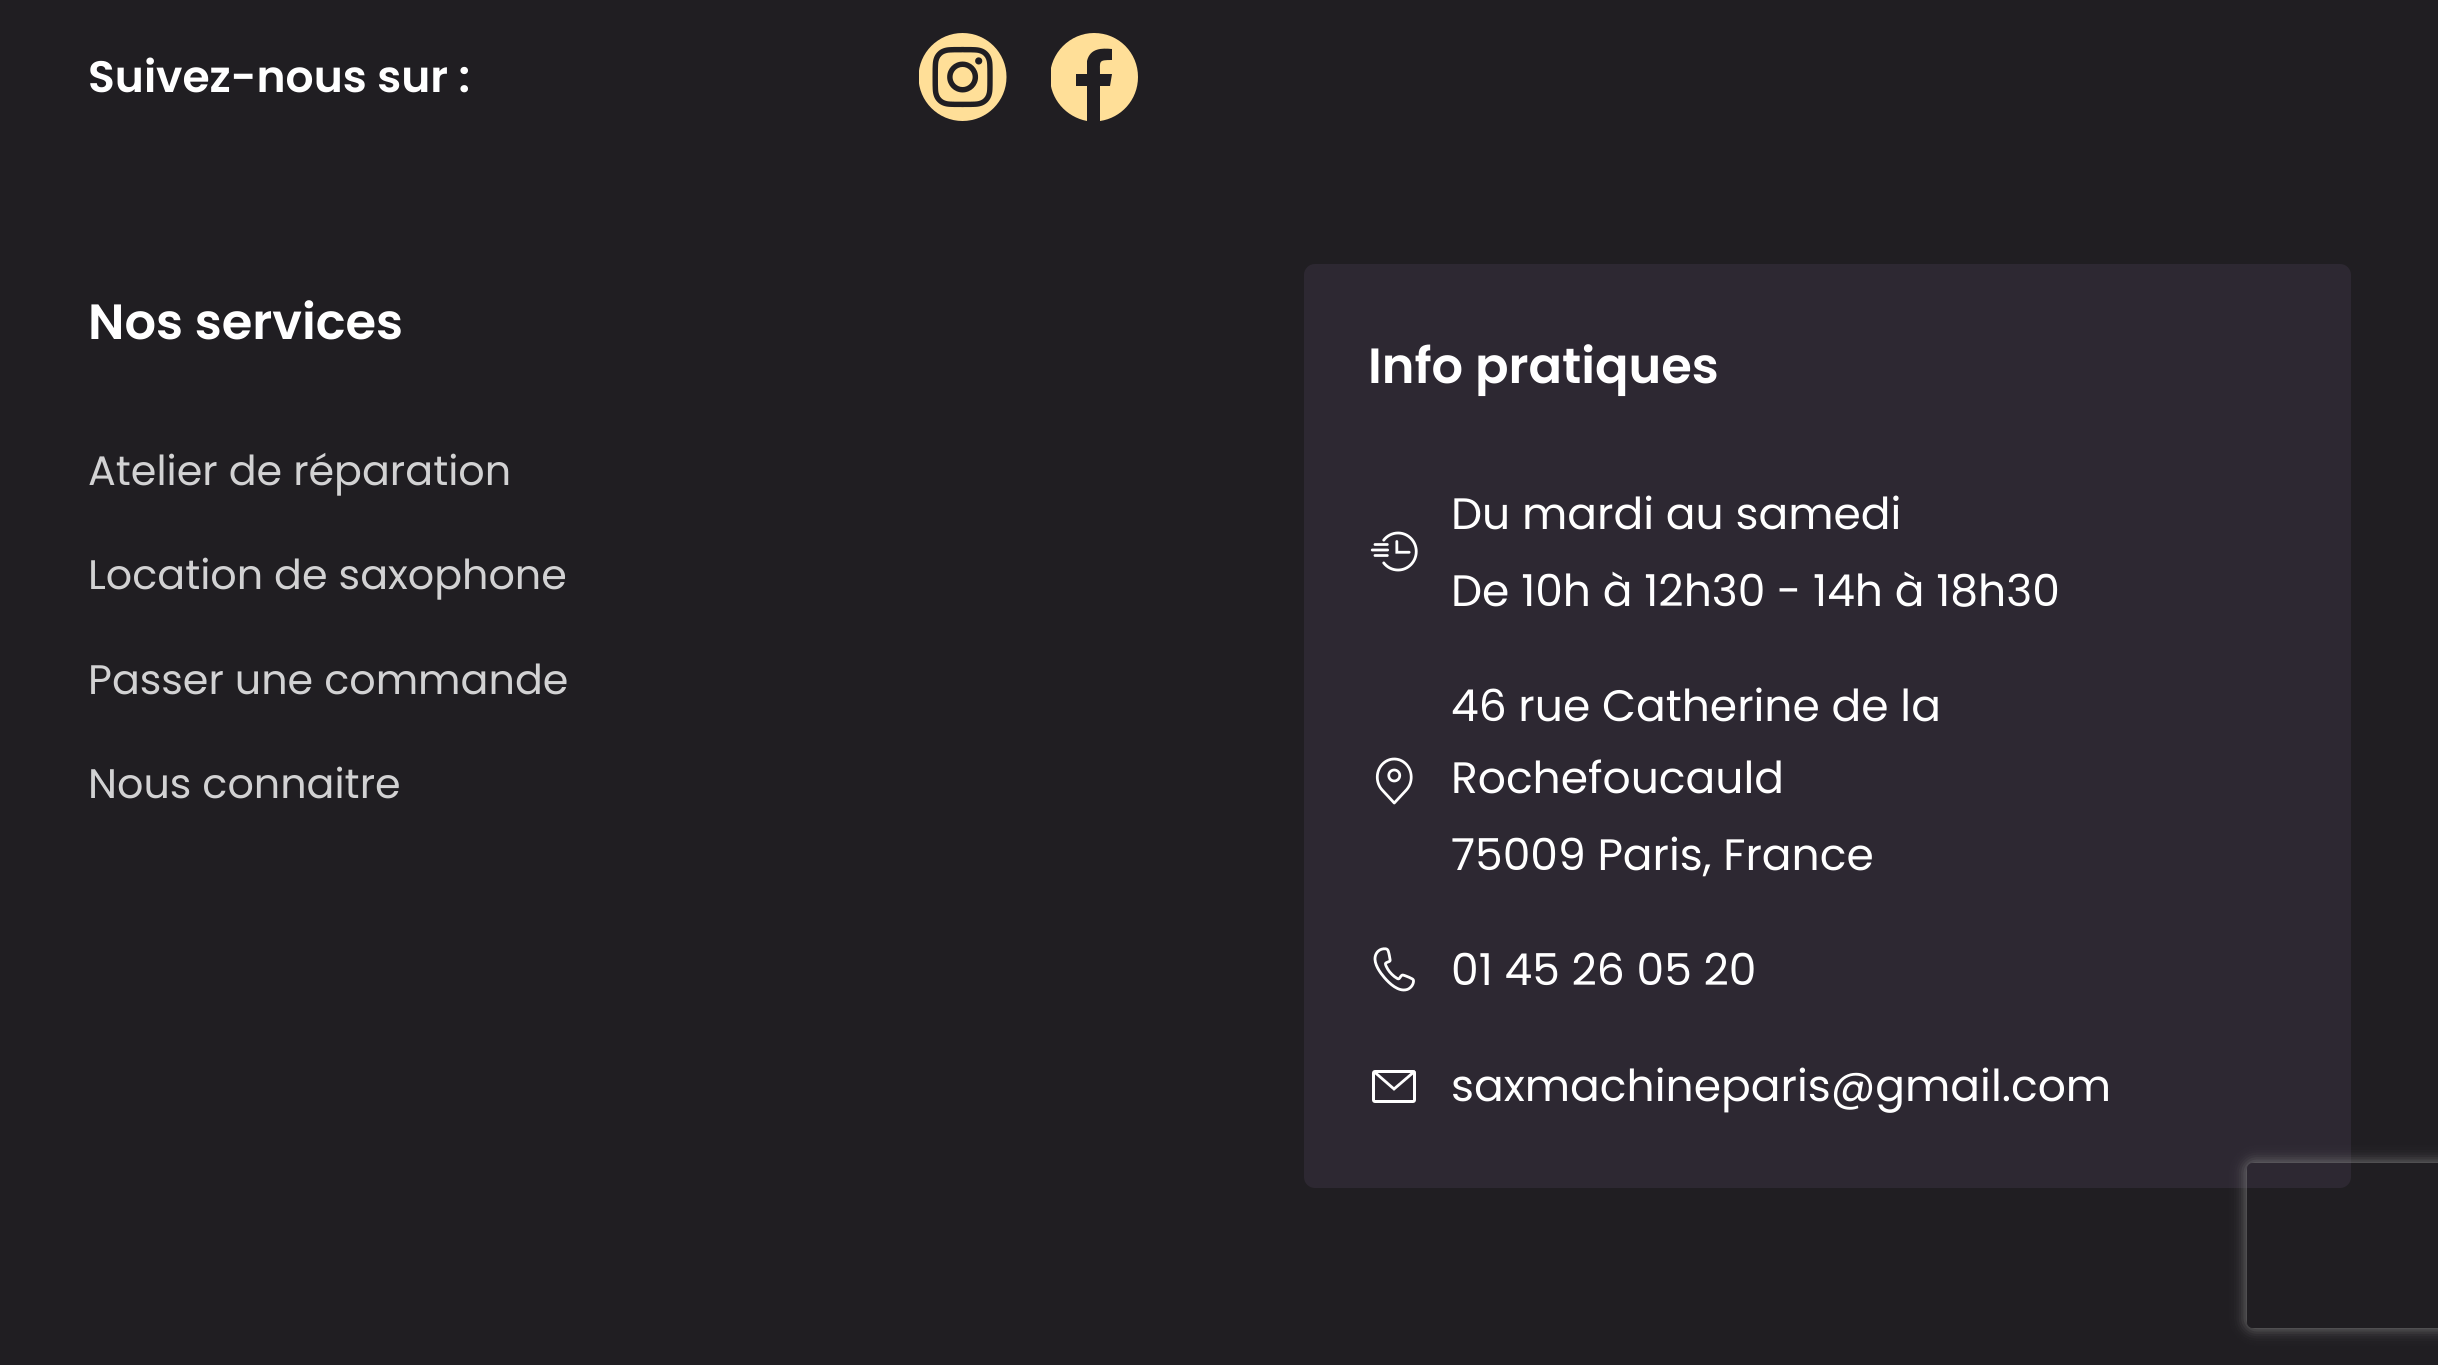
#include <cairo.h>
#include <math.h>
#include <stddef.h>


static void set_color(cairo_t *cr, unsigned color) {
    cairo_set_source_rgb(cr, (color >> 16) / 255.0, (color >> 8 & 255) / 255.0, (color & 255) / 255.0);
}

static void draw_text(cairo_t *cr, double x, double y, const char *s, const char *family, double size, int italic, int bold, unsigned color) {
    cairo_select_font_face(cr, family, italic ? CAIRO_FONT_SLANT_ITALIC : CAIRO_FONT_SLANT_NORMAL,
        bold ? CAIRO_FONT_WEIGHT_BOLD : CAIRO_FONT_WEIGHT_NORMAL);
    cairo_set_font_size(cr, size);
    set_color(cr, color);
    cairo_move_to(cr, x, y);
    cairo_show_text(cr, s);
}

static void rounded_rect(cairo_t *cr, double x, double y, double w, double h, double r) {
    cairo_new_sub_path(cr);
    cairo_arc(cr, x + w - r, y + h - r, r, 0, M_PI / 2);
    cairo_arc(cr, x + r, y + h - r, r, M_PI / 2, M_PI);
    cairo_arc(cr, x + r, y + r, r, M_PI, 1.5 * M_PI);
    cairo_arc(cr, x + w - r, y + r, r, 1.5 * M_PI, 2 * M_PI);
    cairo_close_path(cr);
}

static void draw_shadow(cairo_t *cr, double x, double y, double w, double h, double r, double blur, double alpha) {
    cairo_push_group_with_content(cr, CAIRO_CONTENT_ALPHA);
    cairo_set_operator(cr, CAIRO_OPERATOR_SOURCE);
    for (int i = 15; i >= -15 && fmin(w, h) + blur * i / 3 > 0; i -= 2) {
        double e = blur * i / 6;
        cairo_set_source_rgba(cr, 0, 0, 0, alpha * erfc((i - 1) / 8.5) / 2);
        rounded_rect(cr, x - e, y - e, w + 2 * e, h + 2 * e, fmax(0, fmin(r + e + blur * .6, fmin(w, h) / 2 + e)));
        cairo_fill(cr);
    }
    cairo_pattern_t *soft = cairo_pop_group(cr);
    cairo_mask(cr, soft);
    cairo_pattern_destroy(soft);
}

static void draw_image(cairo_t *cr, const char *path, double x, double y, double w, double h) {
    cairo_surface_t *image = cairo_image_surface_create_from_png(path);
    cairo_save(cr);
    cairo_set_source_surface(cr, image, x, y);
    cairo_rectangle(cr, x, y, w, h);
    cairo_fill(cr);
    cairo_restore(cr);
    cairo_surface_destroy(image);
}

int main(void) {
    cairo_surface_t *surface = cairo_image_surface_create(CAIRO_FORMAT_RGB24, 2438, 1365);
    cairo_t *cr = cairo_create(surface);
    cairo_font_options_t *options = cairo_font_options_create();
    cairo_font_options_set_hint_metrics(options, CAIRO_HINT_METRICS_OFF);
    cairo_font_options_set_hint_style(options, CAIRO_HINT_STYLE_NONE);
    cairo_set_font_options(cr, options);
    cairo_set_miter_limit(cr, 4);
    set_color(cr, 0x201E22);
    cairo_paint(cr);
    draw_text(cr, 88, 92, "Suivez-nous sur :", "Poppins SemiBold", 44, 0, 0, 0xFFFFFF);
    draw_image(cr, "assets/img1.png", 919, 33, 88, 88);
    cairo_save(cr);
    cairo_rectangle(cr, 1051, 33, 88, 88);
    cairo_clip(cr);
    set_color(cr, 0xFFDF98);
    cairo_new_path(cr);
    cairo_move_to(cr, 1094, 33);
    cairo_curve_to(cr, 1070, 33, 1050, 53, 1050, 77);
    cairo_curve_to(cr, 1050, 99, 1066, 117, 1087, 121);
    cairo_line_to(cr, 1087, 86);
    cairo_line_to(cr, 1076, 86);
    cairo_line_to(cr, 1076, 74);
    cairo_line_to(cr, 1087, 74);
    cairo_line_to(cr, 1087, 61);
    cairo_curve_to(cr, 1090, 48, 1102, 48, 1112, 49);
    cairo_line_to(cr, 1112, 60);
    cairo_curve_to(cr, 1098, 60, 1100, 61, 1100, 74);
    cairo_line_to(cr, 1112, 74);
    cairo_line_to(cr, 1110, 86);
    cairo_line_to(cr, 1100, 86);
    cairo_line_to(cr, 1100, 121);
    cairo_curve_to(cr, 1121, 118, 1138, 100, 1138, 77);
    cairo_curve_to(cr, 1138, 53, 1119, 33, 1094, 33);
    cairo_close_path(cr);
    cairo_fill(cr);
    cairo_restore(cr);
    draw_text(cr, 88, 339, "Nos services", "Poppins SemiBold", 49.5, 0, 0, 0xFFFFFF);
    draw_text(cr, 88, 485, "Atelier de réparation", "Poppins", 41.25, 0, 0, 0xD2D2D3);
    draw_text(cr, 88, 589, "Location de saxophone", "Poppins", 41.25, 0, 0, 0xD2D2D3);
    draw_text(cr, 88, 694, "Passer une commande", "Poppins", 41.25, 0, 0, 0xD2D2D3);
    draw_text(cr, 88, 798, "Nous connaitre", "Poppins", 41.25, 0, 0, 0xD2D2D3);
    set_color(cr, 0x2D2832);
    rounded_rect(cr, 1304, 264, 1047, 924, 11);
    cairo_fill(cr);
    draw_text(cr, 1368, 383, "Info pratiques", "Poppins SemiBold", 49.5, 0, 0, 0xFFFFFF);
    draw_image(cr, "assets/img2.png", 1370, 531, 48, 41);
    draw_text(cr, 1451, 529, "Du mardi au samedi", "Poppins", 44, 0, 0, 0xFFFFFF);
    draw_text(cr, 1451, 606, "De 10h à 12h30 - 14h à 18h30", "Poppins", 44, 0, 0, 0xFFFFFF);
    draw_image(cr, "assets/img3.png", 1375, 757, 38, 48);
    draw_text(cr, 1451, 721, "46 rue Catherine de la", "Poppins", 44, 0, 0, 0xFFFFFF);
    draw_text(cr, 1451, 793, "Rochefoucauld", "Poppins", 44, 0, 0, 0xFFFFFF);
    draw_text(cr, 1451, 870, "75009 Paris, France", "Poppins", 44, 0, 0, 0xFFFFFF);
    draw_image(cr, "assets/img4.png", 1373, 947, 42, 45);
    draw_text(cr, 1451, 985, "01 45 26 05 20", "Poppins", 44, 0, 0, 0xFFFFFF);
    rounded_rect(cr, 1373.5, 1071.5, 41, 30, 1.5);
    cairo_set_line_width(cr, 3);
    cairo_stroke(cr);
    cairo_new_path(cr);
    cairo_move_to(cr, 1375, 1072.5);
    cairo_line_to(cr, 1394, 1089);
    cairo_line_to(cr, 1415, 1071);
    cairo_set_line_width(cr, 2.8);
    cairo_stroke(cr);
    draw_text(cr, 1451, 1101, "saxmachineparis@gmail.com", "Poppins", 44, 0, 0, 0xFFFFFF);
    cairo_save(cr);
    cairo_set_fill_rule(cr, CAIRO_FILL_RULE_EVEN_ODD);
    cairo_new_path(cr);
    cairo_move_to(cr, 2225, 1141);
    cairo_line_to(cr, 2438, 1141);
    cairo_line_to(cr, 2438, 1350);
    cairo_line_to(cr, 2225, 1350);
    cairo_close_path(cr);
    cairo_move_to(cr, 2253, 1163);
    cairo_line_to(cr, 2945, 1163);
    cairo_curve_to(cr, 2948.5, 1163, 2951, 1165.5, 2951, 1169);
    cairo_line_to(cr, 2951, 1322);
    cairo_curve_to(cr, 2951, 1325.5, 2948.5, 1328, 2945, 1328);
    cairo_line_to(cr, 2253, 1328);
    cairo_curve_to(cr, 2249.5, 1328, 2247, 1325.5, 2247, 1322);
    cairo_line_to(cr, 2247, 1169);
    cairo_curve_to(cr, 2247, 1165.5, 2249.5, 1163, 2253, 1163);
    cairo_close_path(cr);
    cairo_clip(cr);
    set_color(cr, 0x808080);
    draw_shadow(cr, 2247, 1163, 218, 165, 6, 7, 1);
    cairo_restore(cr);
    cairo_surface_write_to_png(surface, "output.png");
    cairo_font_options_destroy(options);
    cairo_destroy(cr);
    cairo_surface_destroy(surface);
    return 0;
}
